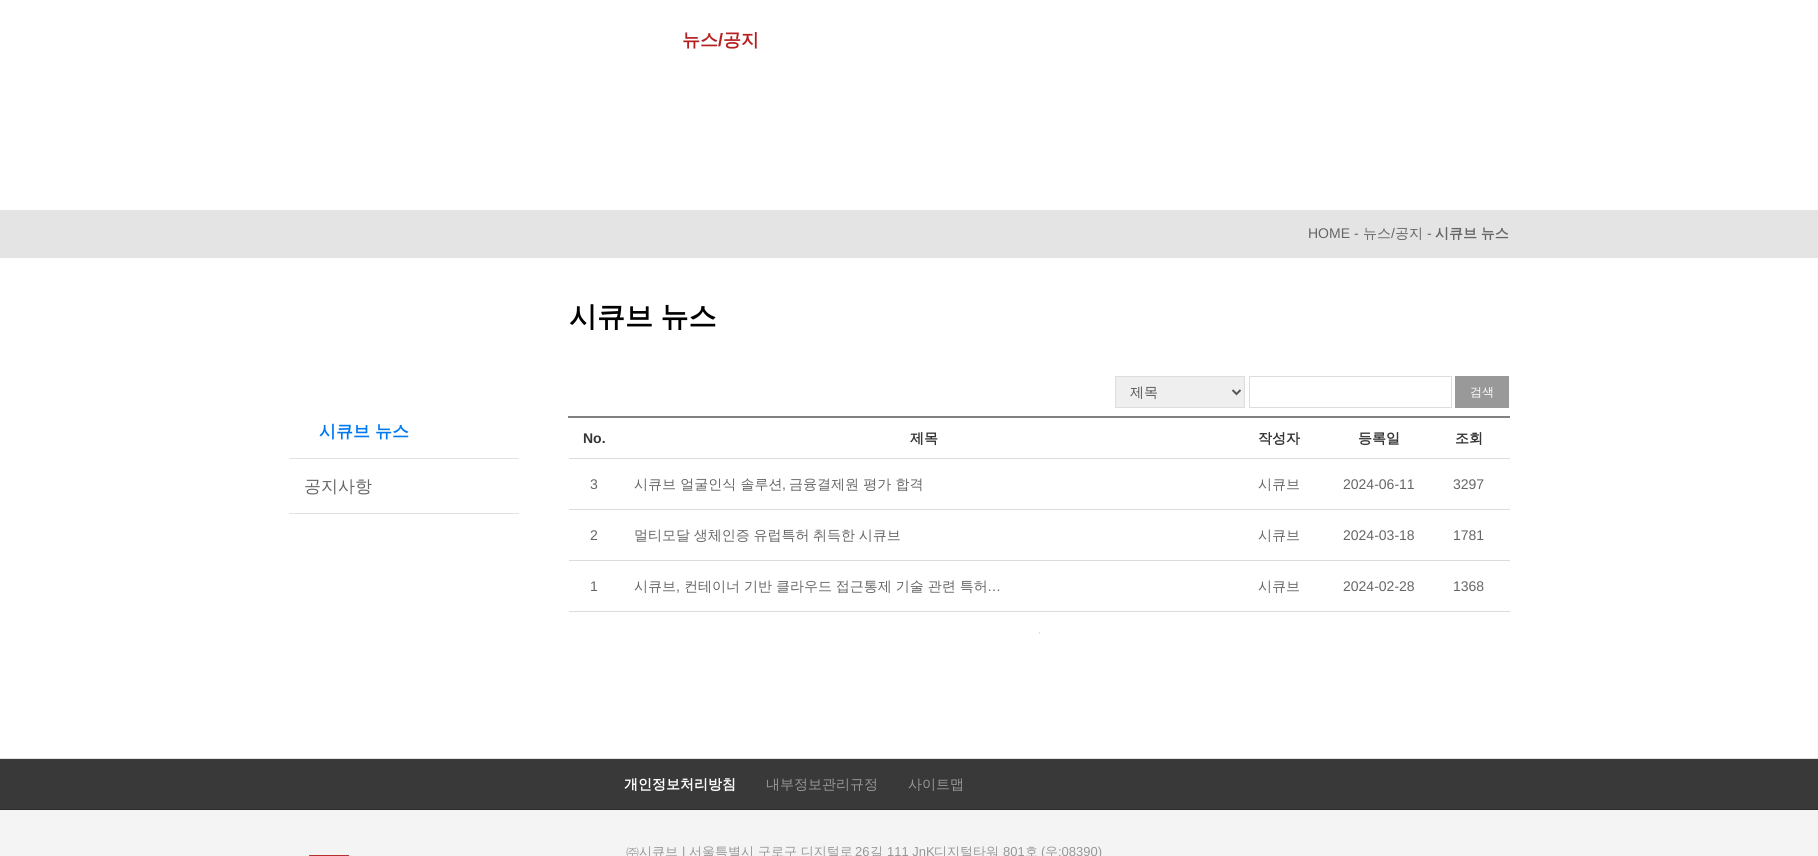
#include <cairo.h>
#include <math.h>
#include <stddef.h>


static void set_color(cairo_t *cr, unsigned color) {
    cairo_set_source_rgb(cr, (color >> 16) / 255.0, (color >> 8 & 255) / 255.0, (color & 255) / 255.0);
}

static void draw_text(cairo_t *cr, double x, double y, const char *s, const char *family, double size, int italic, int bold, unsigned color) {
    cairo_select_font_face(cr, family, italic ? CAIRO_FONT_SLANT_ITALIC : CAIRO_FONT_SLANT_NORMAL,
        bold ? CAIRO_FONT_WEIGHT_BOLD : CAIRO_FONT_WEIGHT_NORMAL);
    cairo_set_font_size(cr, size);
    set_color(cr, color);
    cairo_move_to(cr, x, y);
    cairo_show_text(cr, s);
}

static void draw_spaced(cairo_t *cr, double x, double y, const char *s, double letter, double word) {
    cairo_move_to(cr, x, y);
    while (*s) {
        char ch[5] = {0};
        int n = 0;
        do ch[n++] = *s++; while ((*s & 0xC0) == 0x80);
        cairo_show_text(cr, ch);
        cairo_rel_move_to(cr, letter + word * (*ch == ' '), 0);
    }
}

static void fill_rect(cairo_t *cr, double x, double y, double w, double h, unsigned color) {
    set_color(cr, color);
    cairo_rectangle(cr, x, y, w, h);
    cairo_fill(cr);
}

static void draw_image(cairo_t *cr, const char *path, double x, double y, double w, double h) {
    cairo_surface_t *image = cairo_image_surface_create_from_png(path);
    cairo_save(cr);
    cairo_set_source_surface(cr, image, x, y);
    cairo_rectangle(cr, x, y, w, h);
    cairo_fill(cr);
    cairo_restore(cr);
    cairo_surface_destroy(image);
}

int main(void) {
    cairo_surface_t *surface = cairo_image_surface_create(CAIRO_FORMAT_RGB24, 1818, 856);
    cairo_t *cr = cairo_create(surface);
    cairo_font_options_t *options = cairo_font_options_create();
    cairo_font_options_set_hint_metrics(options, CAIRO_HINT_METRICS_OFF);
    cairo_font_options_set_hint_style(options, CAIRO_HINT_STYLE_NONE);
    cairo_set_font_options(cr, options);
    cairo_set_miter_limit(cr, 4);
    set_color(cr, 0xFFFFFF);
    cairo_paint(cr);
    draw_text(cr, 682, 46, "뉴스", "WenQuanYi Zen Hei", 18, 0, 1, 0xB51F1F);
    draw_text(cr, 718, 46, "/", "Liberation Sans", 18, 0, 1, 0xB51F1F);
    draw_text(cr, 723, 46, "공지", "WenQuanYi Zen Hei", 18, 0, 1, 0xB51F1F);
    fill_rect(cr, 0, 210, 1818, 48, 0xE4E4E4);
    draw_text(cr, 1308, 238, "HOME -", "Liberation Sans", 14, 0, 0, 0x666666);
    draw_text(cr, 1363, 238, "뉴스", "WenQuanYi Zen Hei Medium", 14, 0, 0, 0x666666);
    draw_text(cr, 1391, 238, "/", "Liberation Sans", 14, 0, 0, 0x666666);
    draw_text(cr, 1395, 238, "공지", "WenQuanYi Zen Hei Medium", 14, 0, 0, 0x666666);
    draw_text(cr, 1427, 238, "-", "Liberation Sans", 14, 0, 0, 0x666666);
    cairo_select_font_face(cr, "WenQuanYi Zen Hei", CAIRO_FONT_SLANT_NORMAL, CAIRO_FONT_WEIGHT_BOLD);
    draw_spaced(cr, 1435, 238, "시큐브 뉴스", 0, -0.5);
    fill_rect(cr, 289, 458, 230, 1, 0xE2E2E2);
    draw_text(cr, 319, 437, "시큐브 뉴스", "WenQuanYi Zen Hei", 17, 0, 1, 0x007AEF);
    fill_rect(cr, 289, 513, 230, 1, 0xE2E2E2);
    draw_text(cr, 304, 492, "공지사항", "WenQuanYi Zen Hei Medium", 17, 0, 0, 0x666666);
    cairo_select_font_face(cr, "WenQuanYi Zen Hei", CAIRO_FONT_SLANT_NORMAL, CAIRO_FONT_WEIGHT_BOLD);
    cairo_set_font_size(cr, 28);
    set_color(cr, 0x000000);
    draw_spaced(cr, 569, 326, "시큐브 뉴스", 0, -1);
    set_color(cr, 0xEFEFEF);
    cairo_rectangle(cr, 1115.5, 376.5, 129, 31);
    cairo_fill_preserve(cr);
    set_color(cr, 0xDDDDDD);
    cairo_set_line_width(cr, 1);
    cairo_stroke(cr);
    cairo_new_path(cr);
    cairo_move_to(cr, 1232.5, 390);
    cairo_line_to(cr, 1236.5, 394);
    cairo_line_to(cr, 1240.5, 390);
    set_color(cr, 0x565656);
    cairo_set_line_width(cr, 2);
    cairo_stroke(cr);
    draw_text(cr, 1130, 397, "제목", "WenQuanYi Zen Hei Medium", 14, 0, 0, 0x565656);
    cairo_rectangle(cr, 1249.5, 376.5, 202, 31);
    set_color(cr, 0xDDDDDD);
    cairo_set_line_width(cr, 1);
    cairo_stroke(cr);
    fill_rect(cr, 1455, 376, 54, 32, 0x999999);
    draw_text(cr, 1470, 396, "검색", "WenQuanYi Zen Hei Medium", 12, 0, 0, 0xFFFFFF);
    draw_text(cr, 583, 443, "No.", "Liberation Sans", 14, 0, 1, 0x363636);
    draw_text(cr, 910, 443, "제목", "WenQuanYi Zen Hei", 14, 0, 1, 0x363636);
    draw_text(cr, 1258, 443, "작성자", "WenQuanYi Zen Hei", 14, 0, 1, 0x363636);
    draw_text(cr, 1358, 443, "등록일", "WenQuanYi Zen Hei", 14, 0, 1, 0x363636);
    fill_rect(cr, 569, 458, 941, 1, 0xDCDCDC);
    fill_rect(cr, 568, 416, 942, 2, 0x808183);
    draw_text(cr, 1455, 443, "조회", "WenQuanYi Zen Hei", 14, 0, 1, 0x363636);
    draw_text(cr, 590, 489, "3", "Liberation Sans", 14, 0, 0, 0x666666);
    draw_text(cr, 634, 489, "시큐브 얼굴인식 솔루션", "WenQuanYi Zen Hei Medium", 14, 0, 0, 0x666666);
    draw_text(cr, 782, 489, ",", "Liberation Sans", 14, 0, 0, 0x666666);
    draw_text(cr, 789, 489, "금융결제원 평가 합격", "WenQuanYi Zen Hei Medium", 14, 0, 0, 0x666666);
    draw_text(cr, 1258, 489, "시큐브", "WenQuanYi Zen Hei Medium", 14, 0, 0, 0x666666);
    draw_text(cr, 1343, 489, "2024-06-11", "Liberation Sans", 14, 0, 0, 0x666666);
    fill_rect(cr, 569, 509, 941, 1, 0xDCDCDC);
    draw_text(cr, 1453, 489, "3297", "Liberation Sans", 14, 0, 0, 0x666666);
    draw_text(cr, 590, 540, "2", "Liberation Sans", 14, 0, 0, 0x666666);
    cairo_select_font_face(cr, "WenQuanYi Zen Hei Medium", CAIRO_FONT_SLANT_NORMAL, CAIRO_FONT_WEIGHT_NORMAL);
    draw_spaced(cr, 634, 540, "멀티모달 생체인증 유럽특허 취득한 시큐브", 0, -0.5);
    draw_text(cr, 1258, 540, "시큐브", "WenQuanYi Zen Hei Medium", 14, 0, 0, 0x666666);
    draw_text(cr, 1343, 540, "2024-03-18", "Liberation Sans", 14, 0, 0, 0x666666);
    fill_rect(cr, 569, 560, 941, 1, 0xDCDCDC);
    draw_text(cr, 1453, 540, "1781", "Liberation Sans", 14, 0, 0, 0x666666);
    draw_text(cr, 590, 591, "1", "Liberation Sans", 14, 0, 0, 0x666666);
    draw_text(cr, 634, 591, "시큐브", "WenQuanYi Zen Hei Medium", 14, 0, 0, 0x666666);
    draw_text(cr, 676, 591, ",", "Liberation Sans", 14, 0, 0, 0x666666);
    cairo_select_font_face(cr, "WenQuanYi Zen Hei Medium", CAIRO_FONT_SLANT_NORMAL, CAIRO_FONT_WEIGHT_NORMAL);
    draw_spaced(cr, 684, 591, "컨테이너 기반 클라우드 접근통제 기술 관련 특허", 0, -0.25);
    draw_text(cr, 987, 591, "…", "Liberation Sans", 14, 0, 0, 0x666666);
    draw_text(cr, 1258, 591, "시큐브", "WenQuanYi Zen Hei Medium", 14, 0, 0, 0x666666);
    draw_text(cr, 1343, 591, "2024-02-28", "Liberation Sans", 14, 0, 0, 0x666666);
    fill_rect(cr, 569, 611, 941, 1, 0xDCDCDC);
    draw_text(cr, 1453, 591, "1368", "Liberation Sans", 14, 0, 0, 0x666666);
    fill_rect(cr, 1039, 632, 1, 2, 0xDDDDDD);
    fill_rect(cr, 0, 810, 1818, 46, 0xF4F4F4);
    fill_rect(cr, 0, 758, 1818, 1, 0xE2E2E2);
    fill_rect(cr, 0, 759, 1818, 50, 0x393939);
    fill_rect(cr, 0, 809, 1818, 1, 0x2B2C2C);
    draw_text(cr, 624, 789, "개인정보처리방침", "WenQuanYi Zen Hei", 14, 0, 1, 0xFFFFFF);
    draw_text(cr, 766, 789, "내부정보관리규정", "WenQuanYi Zen Hei Medium", 14, 0, 0, 0x979797);
    draw_text(cr, 908, 789, "사이트맵", "WenQuanYi Zen Hei Medium", 14, 0, 0, 0x979797);
    draw_image(cr, "assets/img1.png", 309, 855, 41, 1);
    draw_text(cr, 626, 856, "㈜시큐브", "WenQuanYi Zen Hei Medium", 13, 0, 0, 0x979797);
    draw_text(cr, 682, 856, "|", "Liberation Sans", 13, 0, 0, 0x979797);
    draw_text(cr, 689, 856, "서울특별시 구로구 디지털로", "WenQuanYi Zen Hei Medium", 13, 0, 0, 0x979797);
    draw_text(cr, 855, 856, "26", "Liberation Sans", 13, 0, 0, 0x979797);
    draw_text(cr, 870, 856, "길", "WenQuanYi Zen Hei Medium", 13, 0, 0, 0x979797);
    draw_text(cr, 887, 856, "111 JnK", "Liberation Sans", 13, 0, 0, 0x979797);
    draw_text(cr, 934, 856, "디지털타워", "WenQuanYi Zen Hei Medium", 13, 0, 0, 0x979797);
    draw_text(cr, 1003, 856, "801", "Liberation Sans", 13, 0, 0, 0x979797);
    draw_text(cr, 1025, 856, "호", "WenQuanYi Zen Hei Medium", 13, 0, 0, 0x979797);
    draw_text(cr, 1041, 856, "(", "Liberation Sans", 13, 0, 0, 0x979797);
    draw_text(cr, 1045, 856, "우", "WenQuanYi Zen Hei Medium", 13, 0, 0, 0x979797);
    draw_text(cr, 1058, 856, ":08390)", "Liberation Sans", 13, 0, 0, 0x979797);
    cairo_surface_write_to_png(surface, "output.png");
    cairo_font_options_destroy(options);
    cairo_destroy(cr);
    cairo_surface_destroy(surface);
    return 0;
}
